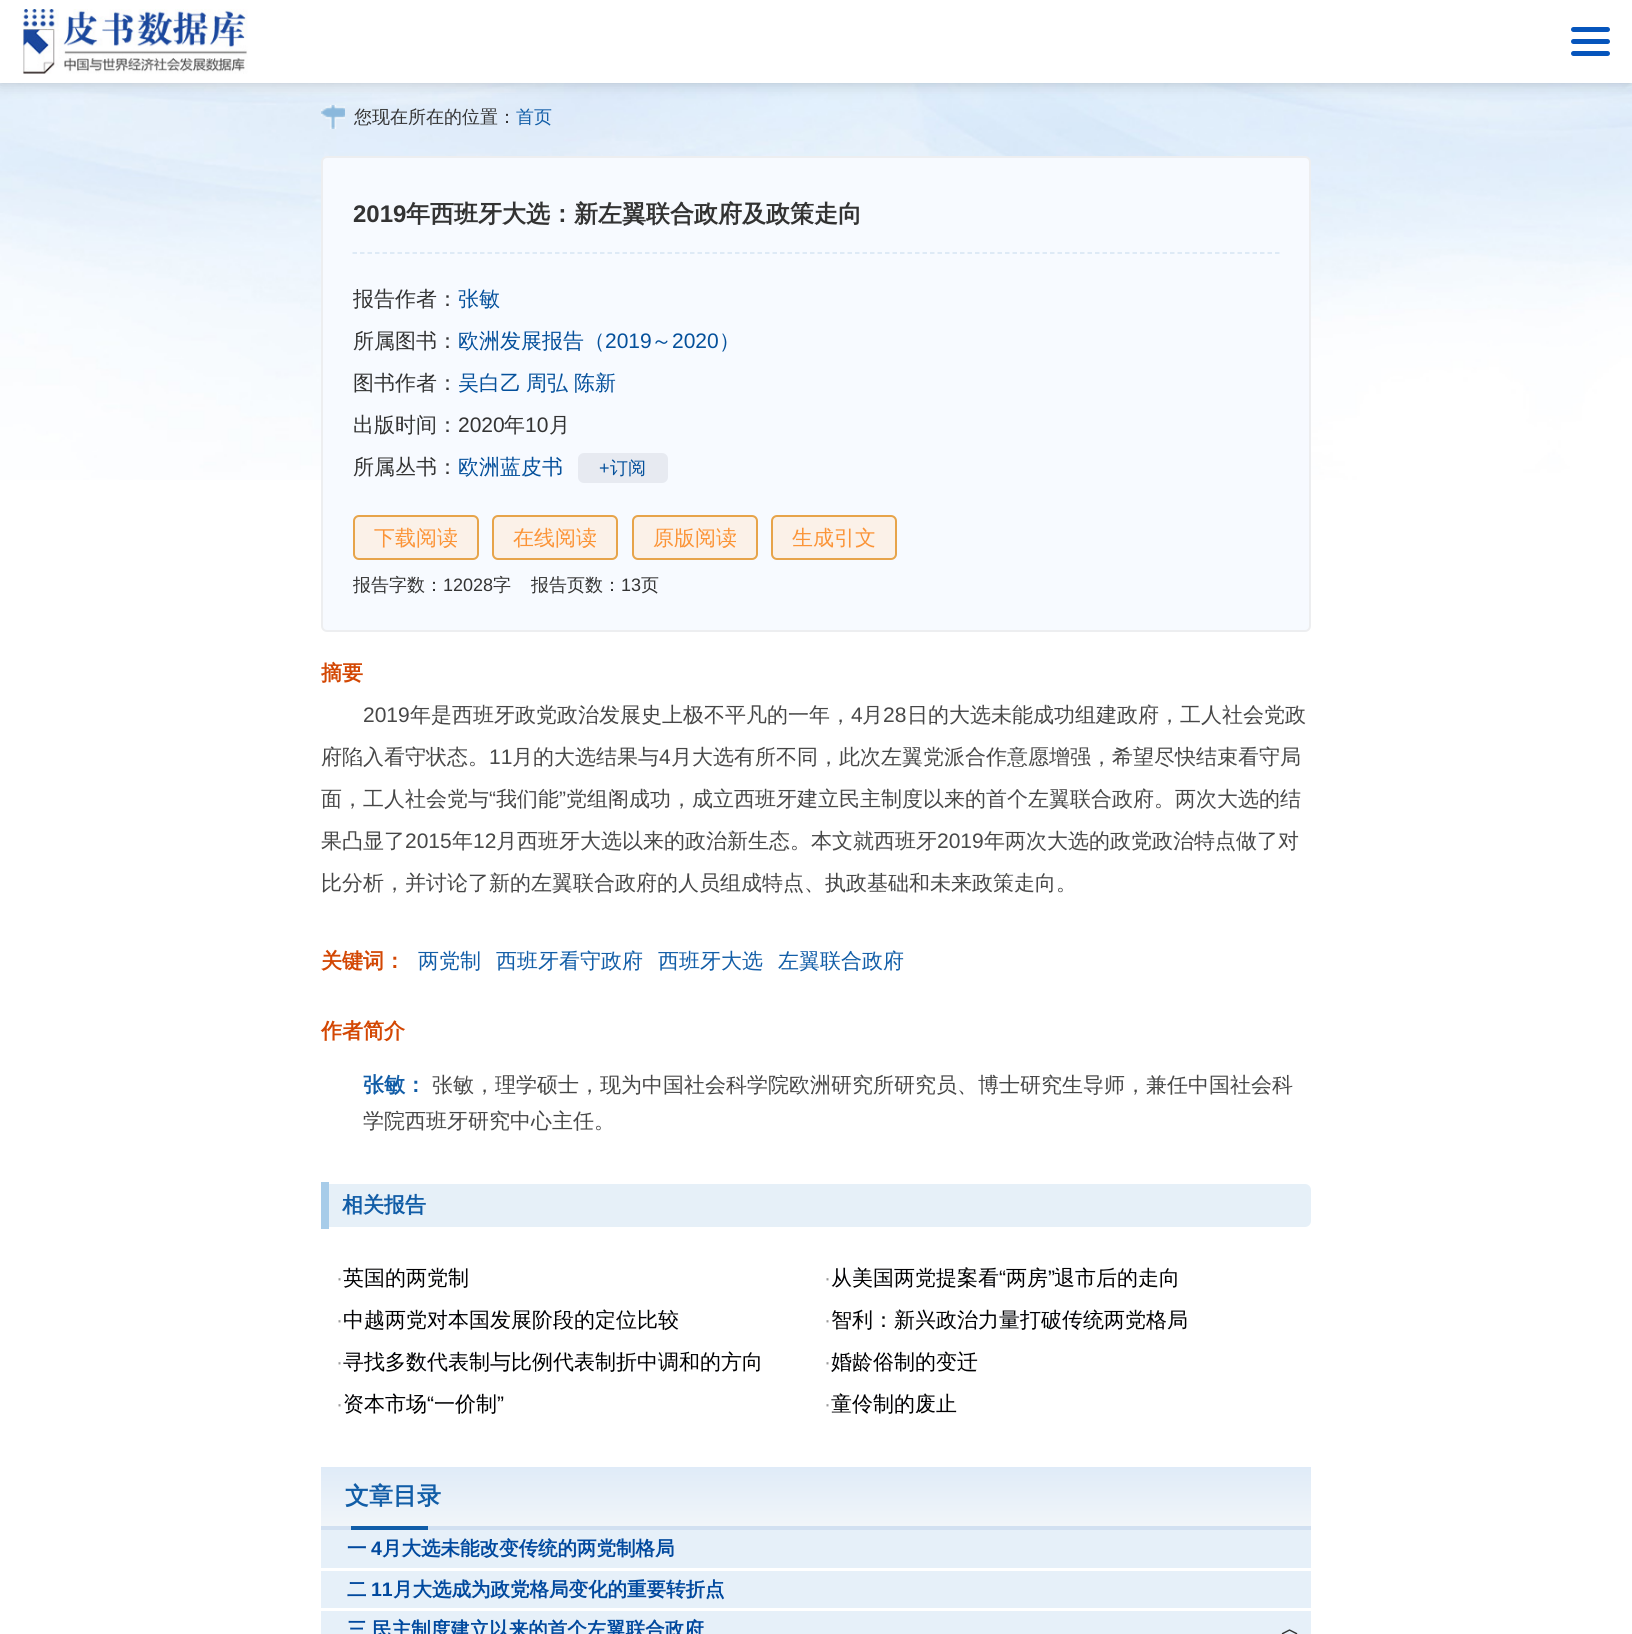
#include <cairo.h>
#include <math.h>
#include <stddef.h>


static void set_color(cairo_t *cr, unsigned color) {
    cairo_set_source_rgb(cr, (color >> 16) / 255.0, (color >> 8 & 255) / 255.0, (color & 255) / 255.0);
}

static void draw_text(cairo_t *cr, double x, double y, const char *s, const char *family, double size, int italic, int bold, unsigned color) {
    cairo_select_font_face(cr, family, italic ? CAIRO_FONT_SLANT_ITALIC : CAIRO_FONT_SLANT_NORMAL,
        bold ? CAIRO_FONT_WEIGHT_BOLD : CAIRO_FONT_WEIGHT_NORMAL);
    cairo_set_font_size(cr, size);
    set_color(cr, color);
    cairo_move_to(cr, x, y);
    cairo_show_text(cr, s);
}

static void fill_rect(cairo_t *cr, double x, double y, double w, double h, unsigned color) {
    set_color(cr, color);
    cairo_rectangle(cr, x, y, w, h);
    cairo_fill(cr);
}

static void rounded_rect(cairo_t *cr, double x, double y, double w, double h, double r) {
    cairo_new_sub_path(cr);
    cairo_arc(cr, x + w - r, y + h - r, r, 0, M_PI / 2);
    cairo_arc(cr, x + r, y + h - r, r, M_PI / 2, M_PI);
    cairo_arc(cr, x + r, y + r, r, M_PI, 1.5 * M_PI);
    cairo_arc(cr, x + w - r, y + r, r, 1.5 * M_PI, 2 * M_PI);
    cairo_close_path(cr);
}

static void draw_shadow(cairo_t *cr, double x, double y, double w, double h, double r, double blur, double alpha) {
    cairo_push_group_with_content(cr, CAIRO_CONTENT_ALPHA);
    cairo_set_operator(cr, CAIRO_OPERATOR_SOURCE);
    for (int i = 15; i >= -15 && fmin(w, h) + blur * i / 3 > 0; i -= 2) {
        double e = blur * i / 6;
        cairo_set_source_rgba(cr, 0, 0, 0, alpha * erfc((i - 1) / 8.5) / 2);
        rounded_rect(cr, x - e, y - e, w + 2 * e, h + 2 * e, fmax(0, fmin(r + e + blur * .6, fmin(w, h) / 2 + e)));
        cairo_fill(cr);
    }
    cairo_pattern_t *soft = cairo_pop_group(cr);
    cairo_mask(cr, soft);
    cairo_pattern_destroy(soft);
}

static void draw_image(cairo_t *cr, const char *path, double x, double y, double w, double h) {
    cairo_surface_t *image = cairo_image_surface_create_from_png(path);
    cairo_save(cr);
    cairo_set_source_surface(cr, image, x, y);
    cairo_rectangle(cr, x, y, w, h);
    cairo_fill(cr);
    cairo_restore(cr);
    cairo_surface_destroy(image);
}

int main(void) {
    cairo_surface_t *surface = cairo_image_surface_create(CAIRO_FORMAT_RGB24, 1632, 1634);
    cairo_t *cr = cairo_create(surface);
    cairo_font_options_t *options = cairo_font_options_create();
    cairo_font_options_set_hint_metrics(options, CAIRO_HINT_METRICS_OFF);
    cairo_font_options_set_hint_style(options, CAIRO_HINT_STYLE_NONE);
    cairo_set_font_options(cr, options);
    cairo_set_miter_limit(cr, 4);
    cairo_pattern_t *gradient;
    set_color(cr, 0xFFFFFF);
    cairo_paint(cr);
    draw_image(cr, "assets/img1.png", 0, 83, 1632, 397);
    draw_image(cr, "assets/img3.png", 321, 105, 24, 24);
    set_color(cr, 0x000000);
    draw_shadow(cr, 0, 0, 1632, 83, 0, 7.5, 0.2);
    fill_rect(cr, 0, 0, 1632, 83, 0xFFFFFF);
    draw_image(cr, "assets/img2.png", 22, 9, 226, 65);
    set_color(cr, 0x0655BC);
    rounded_rect(cr, 1571, 27, 39, 5, 2.5);
    cairo_fill(cr);
    rounded_rect(cr, 1571, 39, 39, 5, 2.5);
    cairo_fill(cr);
    rounded_rect(cr, 1571, 51, 39, 5, 2.5);
    cairo_fill(cr);
    draw_text(cr, 354, 123, "您现在所在的位置：", "WenQuanYi Zen Hei Medium", 18, 0, 0, 0x333333);
    draw_text(cr, 516, 123, "首页", "WenQuanYi Zen Hei Medium", 18, 0, 0, 0x115DA7);
    set_color(cr, 0xF7FAFF);
    rounded_rect(cr, 322, 157, 988, 474, 5);
    cairo_fill_preserve(cr);
    set_color(cr, 0xEDEEF0);
    cairo_stroke(cr);
    cairo_new_path(cr);
    cairo_move_to(cr, 352.5, 253);
    cairo_line_to(cr, 1279.5, 253);
    set_color(cr, 0xD6E5F3);
    cairo_set_line_width(cr, 1.5);
    cairo_set_dash(cr, (double[]){4.5, 3}, 2, 0);
    cairo_stroke(cr);
    draw_text(cr, 353, 222, "2019", "Liberation Sans", 24, 0, 1, 0x333333);
    draw_text(cr, 406, 222, "年西班牙大选：新左翼联合政府及政策走向", "WenQuanYi Zen Hei", 24, 0, 1, 0x333333);
    cairo_save(cr);
    cairo_rectangle(cr, 353, 278, 927, 210);
    cairo_clip(cr);
    draw_text(cr, 353, 306, "报告作者：", "WenQuanYi Zen Hei Medium", 21, 0, 0, 0x333333);
    cairo_restore(cr);
    draw_text(cr, 458, 306, "张敏", "WenQuanYi Zen Hei Medium", 21, 0, 0, 0x04509B);
    draw_text(cr, 353, 348, "所属图书：", "WenQuanYi Zen Hei Medium", 21, 0, 0, 0x333333);
    draw_text(cr, 458, 348, "欧洲发展报告（", "WenQuanYi Zen Hei Medium", 21, 0, 0, 0x04509B);
    draw_text(cr, 605, 348, "2019", "Liberation Sans", 21, 0, 0, 0x04509B);
    draw_text(cr, 651, 348, "～", "WenQuanYi Zen Hei Medium", 21, 0, 0, 0x04509B);
    draw_text(cr, 672, 348, "2020", "Liberation Sans", 21, 0, 0, 0x04509B);
    draw_text(cr, 719, 348, "）", "WenQuanYi Zen Hei Medium", 21, 0, 0, 0x04509B);
    draw_text(cr, 353, 390, "图书作者：", "WenQuanYi Zen Hei Medium", 21, 0, 0, 0x333333);
    draw_text(cr, 458, 390, "吴白乙", "WenQuanYi Zen Hei Medium", 21, 0, 0, 0x04509B);
    draw_text(cr, 526, 390, "周弘", "WenQuanYi Zen Hei Medium", 21, 0, 0, 0x04509B);
    draw_text(cr, 574, 390, "陈新", "WenQuanYi Zen Hei Medium", 21, 0, 0, 0x04509B);
    draw_text(cr, 353, 432, "出版时间：", "WenQuanYi Zen Hei Medium", 21, 0, 0, 0x333333);
    draw_text(cr, 458, 432, "2020", "Liberation Sans", 21, 0, 0, 0x333333);
    draw_text(cr, 504, 432, "年", "WenQuanYi Zen Hei Medium", 21, 0, 0, 0x333333);
    draw_text(cr, 525, 432, "10", "Liberation Sans", 21, 0, 0, 0x333333);
    draw_text(cr, 549, 432, "月", "WenQuanYi Zen Hei Medium", 21, 0, 0, 0x333333);
    draw_text(cr, 353, 474, "所属丛书：", "WenQuanYi Zen Hei Medium", 21, 0, 0, 0x333333);
    draw_text(cr, 458, 474, "欧洲蓝皮书", "WenQuanYi Zen Hei Medium", 21, 0, 0, 0x04509B);
    set_color(cr, 0xE7EAF1);
    rounded_rect(cr, 578, 453, 90, 30, 6);
    cairo_fill(cr);
    draw_text(cr, 599, 474, "+", "Liberation Sans", 18, 0, 0, 0x04509B);
    draw_text(cr, 610, 474, "订阅", "WenQuanYi Zen Hei Medium", 18, 0, 0, 0x04509B);
    set_color(cr, 0xFBF1E8);
    rounded_rect(cr, 354, 516, 124, 43, 5);
    cairo_fill_preserve(cr);
    set_color(cr, 0xE7A44A);
    cairo_set_line_width(cr, 2);
    cairo_set_dash(cr, NULL, 0, 0);
    cairo_stroke(cr);
    draw_text(cr, 374, 545, "下载阅读", "WenQuanYi Zen Hei Medium", 21, 0, 0, 0xFB9437);
    set_color(cr, 0xFBF1E8);
    rounded_rect(cr, 493, 516, 124, 43, 5);
    cairo_fill_preserve(cr);
    set_color(cr, 0xE7A44A);
    cairo_stroke(cr);
    draw_text(cr, 513, 545, "在线阅读", "WenQuanYi Zen Hei Medium", 21, 0, 0, 0xFB9437);
    set_color(cr, 0xFBF1E8);
    rounded_rect(cr, 633, 516, 124, 43, 5);
    cairo_fill_preserve(cr);
    set_color(cr, 0xE7A44A);
    cairo_stroke(cr);
    draw_text(cr, 653, 545, "原版阅读", "WenQuanYi Zen Hei Medium", 21, 0, 0, 0xFB9437);
    set_color(cr, 0xFBF1E8);
    rounded_rect(cr, 772, 516, 124, 43, 5);
    cairo_fill_preserve(cr);
    set_color(cr, 0xE7A44A);
    cairo_stroke(cr);
    draw_text(cr, 792, 545, "生成引文", "WenQuanYi Zen Hei Medium", 21, 0, 0, 0xFB9437);
    draw_text(cr, 353, 591, "报告字数：", "WenQuanYi Zen Hei Medium", 18, 0, 0, 0x333333);
    draw_text(cr, 443, 591, "12028", "Liberation Sans", 18, 0, 0, 0x333333);
    draw_text(cr, 493, 591, "字", "WenQuanYi Zen Hei Medium", 18, 0, 0, 0x333333);
    draw_text(cr, 531, 591, "报告页数：", "WenQuanYi Zen Hei Medium", 18, 0, 0, 0x333333);
    draw_text(cr, 621, 591, "13", "Liberation Sans", 18, 0, 0, 0x333333);
    draw_text(cr, 641, 591, "页", "WenQuanYi Zen Hei Medium", 18, 0, 0, 0x333333);
    draw_text(cr, 321, 680, "摘要", "WenQuanYi Zen Hei", 21, 0, 1, 0xD34703);
    draw_text(cr, 363, 722, "2019", "Liberation Sans", 21, 0, 0, 0x474747);
    draw_text(cr, 410, 722, "年是西班牙政党政治发展史上极不平凡的一年，", "WenQuanYi Zen Hei Medium", 21, 0, 0, 0x474747);
    draw_text(cr, 851, 722, "4", "Liberation Sans", 21, 0, 0, 0x474747);
    draw_text(cr, 862, 722, "月", "WenQuanYi Zen Hei Medium", 21, 0, 0, 0x474747);
    draw_text(cr, 883, 722, "28", "Liberation Sans", 21, 0, 0, 0x474747);
    draw_text(cr, 907, 722, "日的大选未能成功组建政府，工人社会党政", "WenQuanYi Zen Hei Medium", 21, 0, 0, 0x474747);
    draw_text(cr, 321, 764, "府陷入看守状态。", "WenQuanYi Zen Hei Medium", 21, 0, 0, 0x474747);
    draw_text(cr, 489, 764, "11", "Liberation Sans", 21, 0, 0, 0x474747);
    draw_text(cr, 512, 764, "月的大选结果与", "WenQuanYi Zen Hei Medium", 21, 0, 0, 0x474747);
    draw_text(cr, 659, 764, "4", "Liberation Sans", 21, 0, 0, 0x474747);
    draw_text(cr, 671, 764, "月大选有所不同，此次左翼党派合作意愿增强，希望尽快结束看守局", "WenQuanYi Zen Hei Medium", 21, 0, 0, 0x474747);
    draw_text(cr, 321, 806, "面，工人社会党与", "WenQuanYi Zen Hei Medium", 21, 0, 0, 0x474747);
    draw_text(cr, 489, 806, "“", "Liberation Sans", 21, 0, 0, 0x474747);
    draw_text(cr, 496, 806, "我们能", "WenQuanYi Zen Hei Medium", 21, 0, 0, 0x474747);
    draw_text(cr, 559, 806, "”", "Liberation Sans", 21, 0, 0, 0x474747);
    draw_text(cr, 566, 806, "党组阁成功，成立西班牙建立民主制度以来的首个左翼联合政府。两次大选的结", "WenQuanYi Zen Hei Medium", 21, 0, 0, 0x474747);
    draw_text(cr, 321, 848, "果凸显了", "WenQuanYi Zen Hei Medium", 21, 0, 0, 0x474747);
    draw_text(cr, 405, 848, "2015", "Liberation Sans", 21, 0, 0, 0x474747);
    draw_text(cr, 452, 848, "年", "WenQuanYi Zen Hei Medium", 21, 0, 0, 0x474747);
    draw_text(cr, 473, 848, "12", "Liberation Sans", 21, 0, 0, 0x474747);
    draw_text(cr, 496, 848, "月西班牙大选以来的政治新生态。本文就西班牙", "WenQuanYi Zen Hei Medium", 21, 0, 0, 0x474747);
    draw_text(cr, 937, 848, "2019", "Liberation Sans", 21, 0, 0, 0x474747);
    draw_text(cr, 984, 848, "年两次大选的政党政治特点做了对", "WenQuanYi Zen Hei Medium", 21, 0, 0, 0x474747);
    draw_text(cr, 321, 890, "比分析，并讨论了新的左翼联合政府的人员组成特点、执政基础和未来政策走向。", "WenQuanYi Zen Hei Medium", 21, 0, 0, 0x474747);
    draw_text(cr, 321, 968, "关键词：", "WenQuanYi Zen Hei", 21, 0, 1, 0xD34703);
    draw_text(cr, 418, 968, "两党制", "WenQuanYi Zen Hei Medium", 21, 0, 0, 0x115DA7);
    draw_text(cr, 496, 968, "西班牙看守政府", "WenQuanYi Zen Hei Medium", 21, 0, 0, 0x115DA7);
    draw_text(cr, 658, 968, "西班牙大选", "WenQuanYi Zen Hei Medium", 21, 0, 0, 0x115DA7);
    draw_text(cr, 778, 968, "左翼联合政府", "WenQuanYi Zen Hei Medium", 21, 0, 0, 0x115DA7);
    draw_text(cr, 321, 1038, "作者简介", "WenQuanYi Zen Hei", 21, 0, 1, 0xD34703);
    draw_text(cr, 363, 1092, "张敏：", "WenQuanYi Zen Hei", 21, 0, 1, 0x115DA7);
    draw_text(cr, 432, 1092, "张敏，理学硕士，现为中国社会科学院欧洲研究所研究员、博士研究生导师，兼任中国社会科", "WenQuanYi Zen Hei Medium", 21, 0, 0, 0x474747);
    draw_text(cr, 363, 1128, "学院西班牙研究中心主任。", "WenQuanYi Zen Hei Medium", 21, 0, 0, 0x474747);
    set_color(cr, 0xE6F0F8);
    rounded_rect(cr, 321, 1184, 990, 43, 6);
    cairo_fill(cr);
    fill_rect(cr, 321, 1182, 8, 47, 0xA7CCE9);
    draw_text(cr, 342, 1212, "相关报告", "WenQuanYi Zen Hei", 21, 0, 1, 0x115DA7);
    draw_text(cr, 336, 1285, "·", "Liberation Sans", 21, 0, 0, 0x9B9B9B);
    draw_text(cr, 343, 1285, "英国的两党制", "WenQuanYi Zen Hei Medium", 21, 0, 0, 0x000002);
    draw_text(cr, 831, 1285, "从美国两党提案看", "WenQuanYi Zen Hei Medium", 21, 0, 0, 0x000002);
    draw_text(cr, 999, 1285, "“", "Liberation Sans", 21, 0, 0, 0x000002);
    draw_text(cr, 1006, 1285, "两房", "WenQuanYi Zen Hei Medium", 21, 0, 0, 0x000002);
    draw_text(cr, 1048, 1285, "”", "Liberation Sans", 21, 0, 0, 0x000002);
    draw_text(cr, 1054, 1285, "退市后的走向", "WenQuanYi Zen Hei Medium", 21, 0, 0, 0x000002);
    draw_text(cr, 824, 1285, "·", "Liberation Sans", 21, 0, 0, 0x9B9B9B);
    draw_text(cr, 336, 1327, "·", "Liberation Sans", 21, 0, 0, 0x9B9B9B);
    draw_text(cr, 343, 1327, "中越两党对本国发展阶段的定位比较", "WenQuanYi Zen Hei Medium", 21, 0, 0, 0x000002);
    draw_text(cr, 824, 1327, "·", "Liberation Sans", 21, 0, 0, 0x9B9B9B);
    draw_text(cr, 831, 1327, "智利：新兴政治力量打破传统两党格局", "WenQuanYi Zen Hei Medium", 21, 0, 0, 0x000002);
    draw_text(cr, 336, 1369, "·", "Liberation Sans", 21, 0, 0, 0x9B9B9B);
    draw_text(cr, 343, 1369, "寻找多数代表制与比例代表制折中调和的方向", "WenQuanYi Zen Hei Medium", 21, 0, 0, 0x000002);
    draw_text(cr, 824, 1369, "·", "Liberation Sans", 21, 0, 0, 0x9B9B9B);
    draw_text(cr, 831, 1369, "婚龄俗制的变迁", "WenQuanYi Zen Hei Medium", 21, 0, 0, 0x000002);
    draw_text(cr, 343, 1411, "资本市场", "WenQuanYi Zen Hei Medium", 21, 0, 0, 0x000002);
    draw_text(cr, 427, 1411, "“", "Liberation Sans", 21, 0, 0, 0x000002);
    draw_text(cr, 434, 1411, "一价制", "WenQuanYi Zen Hei Medium", 21, 0, 0, 0x000002);
    draw_text(cr, 497, 1411, "”", "Liberation Sans", 21, 0, 0, 0x000002);
    draw_text(cr, 336, 1411, "·", "Liberation Sans", 21, 0, 0, 0x9B9B9B);
    draw_text(cr, 824, 1411, "·", "Liberation Sans", 21, 0, 0, 0x9B9B9B);
    draw_text(cr, 831, 1411, "童伶制的废止", "WenQuanYi Zen Hei Medium", 21, 0, 0, 0x000002);
    gradient = cairo_pattern_create_linear(816, 1526, 816, 1467);
    cairo_pattern_add_color_stop_rgba(gradient, 0, 0.945, 0.961, 0.976, 1);
    cairo_pattern_add_color_stop_rgba(gradient, 1, 0.875, 0.922, 0.973, 1);
    cairo_set_source(cr, gradient);
    cairo_pattern_destroy(gradient);
    cairo_rectangle(cr, 321, 1467, 990, 59);
    cairo_fill(cr);
    fill_rect(cr, 321, 1526, 990, 4, 0xD2E0F1);
    draw_text(cr, 345, 1504, "文章目录", "WenQuanYi Zen Hei", 24, 0, 1, 0x115DA7);
    fill_rect(cr, 351, 1526, 77, 4, 0x115DA9);
    fill_rect(cr, 321, 1530, 990, 38, 0xE6F0F9);
    draw_text(cr, 347, 1555, "一", "WenQuanYi Zen Hei", 19.5, 0, 1, 0x01499E);
    draw_text(cr, 371, 1555, "4", "Liberation Sans", 19.5, 0, 1, 0x01499E);
    draw_text(cr, 382, 1555, "月大选未能改变传统的两党制格局", "WenQuanYi Zen Hei", 19.5, 0, 1, 0x01499E);
    fill_rect(cr, 321, 1571, 990, 37, 0xE6F0F9);
    draw_text(cr, 347, 1596, "二", "WenQuanYi Zen Hei", 19.5, 0, 1, 0x01499E);
    draw_text(cr, 371, 1596, "11", "Liberation Sans", 19.5, 0, 1, 0x01499E);
    draw_text(cr, 393, 1596, "月大选成为政党格局变化的重要转折点", "WenQuanYi Zen Hei", 19.5, 0, 1, 0x01499E);
    fill_rect(cr, 321, 1611, 990, 23, 0xE6F0F9);
    draw_text(cr, 347, 1636, "三 民主制度建立以来的首个左翼联合政府", "WenQuanYi Zen Hei", 19.5, 0, 1, 0x01499E);
    draw_text(cr, 1281, 1635, "︿", "WenQuanYi Zen Hei", 18, 0, 1, 0x333333);
    cairo_surface_write_to_png(surface, "output.png");
    cairo_font_options_destroy(options);
    cairo_destroy(cr);
    cairo_surface_destroy(surface);
    return 0;
}
